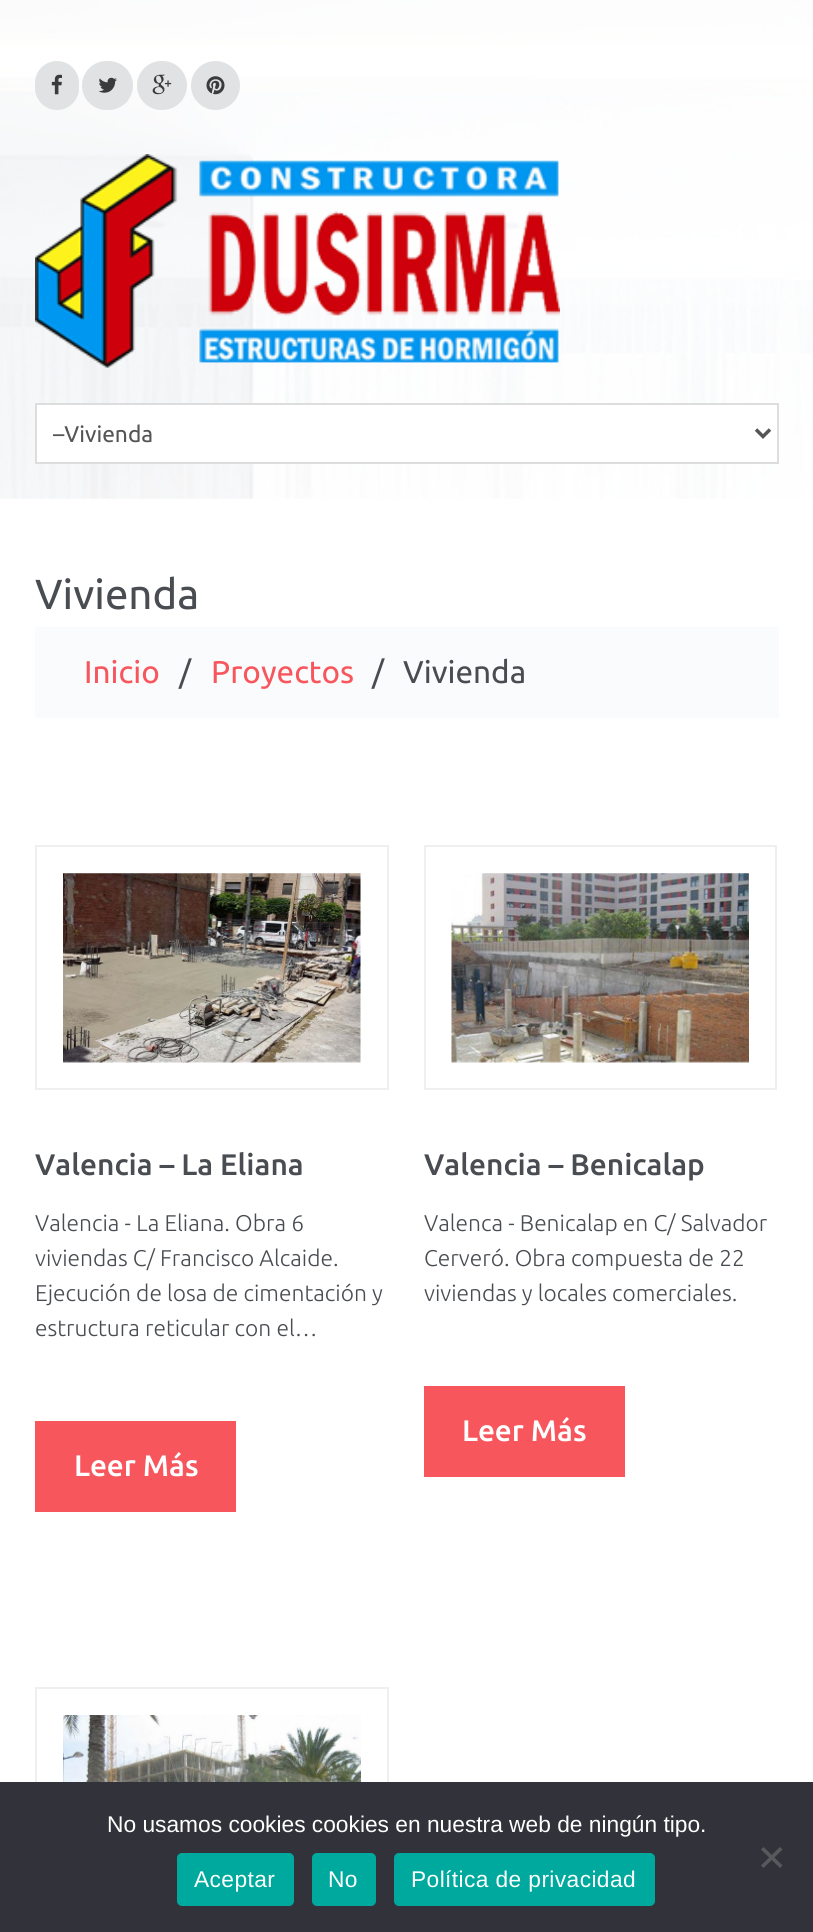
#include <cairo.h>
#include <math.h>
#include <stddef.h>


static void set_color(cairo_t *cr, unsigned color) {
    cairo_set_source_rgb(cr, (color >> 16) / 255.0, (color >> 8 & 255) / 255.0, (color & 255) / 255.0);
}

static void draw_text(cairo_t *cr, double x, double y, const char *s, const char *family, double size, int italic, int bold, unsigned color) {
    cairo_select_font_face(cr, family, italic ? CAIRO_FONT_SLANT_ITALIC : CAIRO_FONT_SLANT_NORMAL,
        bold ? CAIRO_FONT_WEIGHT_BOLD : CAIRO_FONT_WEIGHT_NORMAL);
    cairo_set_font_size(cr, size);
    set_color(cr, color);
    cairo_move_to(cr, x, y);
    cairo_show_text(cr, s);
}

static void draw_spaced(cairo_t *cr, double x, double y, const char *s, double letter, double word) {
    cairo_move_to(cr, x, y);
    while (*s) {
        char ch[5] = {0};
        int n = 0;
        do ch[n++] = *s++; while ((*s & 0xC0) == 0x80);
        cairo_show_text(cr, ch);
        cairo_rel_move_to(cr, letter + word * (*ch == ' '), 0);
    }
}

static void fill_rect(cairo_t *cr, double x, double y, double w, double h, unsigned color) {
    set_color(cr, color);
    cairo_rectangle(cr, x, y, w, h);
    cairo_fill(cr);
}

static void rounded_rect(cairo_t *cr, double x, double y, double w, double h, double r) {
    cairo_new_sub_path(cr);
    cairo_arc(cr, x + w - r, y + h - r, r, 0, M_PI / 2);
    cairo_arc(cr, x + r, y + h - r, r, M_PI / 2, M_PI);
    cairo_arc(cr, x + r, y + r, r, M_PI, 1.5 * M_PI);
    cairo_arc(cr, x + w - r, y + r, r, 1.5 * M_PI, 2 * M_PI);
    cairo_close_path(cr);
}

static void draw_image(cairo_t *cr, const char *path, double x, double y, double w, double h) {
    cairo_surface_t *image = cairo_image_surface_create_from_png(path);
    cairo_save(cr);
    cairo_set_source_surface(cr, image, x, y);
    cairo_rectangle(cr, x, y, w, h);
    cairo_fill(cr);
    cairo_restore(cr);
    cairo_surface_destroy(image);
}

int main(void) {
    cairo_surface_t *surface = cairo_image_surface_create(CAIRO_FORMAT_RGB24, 813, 1932);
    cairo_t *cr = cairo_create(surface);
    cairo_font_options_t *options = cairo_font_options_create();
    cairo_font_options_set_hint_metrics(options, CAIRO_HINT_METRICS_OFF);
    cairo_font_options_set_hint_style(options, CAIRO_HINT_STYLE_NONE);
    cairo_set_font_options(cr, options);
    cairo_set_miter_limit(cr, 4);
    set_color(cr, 0xFFFFFF);
    cairo_paint(cr);
    draw_image(cr, "assets/img1.png", 0, 0, 813, 499);
    set_color(cr, 0xE1E2E4);
    rounded_rect(cr, 35, 61, 44, 49, 22);
    cairo_fill(cr);
    draw_image(cr, "assets/img2.png", 51, 74, 11, 21);
    rounded_rect(cr, 82, 61, 51, 49, 24.5);
    cairo_fill(cr);
    draw_image(cr, "assets/img3.png", 98, 77, 19, 16);
    rounded_rect(cr, 137, 61, 50, 49, 24.5);
    cairo_fill(cr);
    draw_image(cr, "assets/img4.png", 152, 74, 20, 21);
    cairo_arc(cr, 215.5, 85.5, 24.5, 0, 2 * M_PI);
    cairo_fill(cr);
    draw_image(cr, "assets/img5.png", 206, 76, 19, 19);
    draw_image(cr, "assets/img6.png", 35, 154, 525, 214);
    set_color(cr, 0xFFFFFF);
    cairo_rectangle(cr, 36, 404, 742, 59);
    cairo_fill_preserve(cr);
    set_color(cr, 0xDDDDDD);
    cairo_stroke(cr);
    cairo_new_path(cr);
    cairo_move_to(cr, 756, 429.5);
    cairo_line_to(cr, 763, 436.5);
    cairo_line_to(cr, 770, 429.5);
    set_color(cr, 0x555555);
    cairo_set_line_width(cr, 3.5);
    cairo_stroke(cr);
    draw_text(cr, 53, 442, "–Vivienda", "Ubuntu", 22.75, 0, 0, 0x555555);
    draw_text(cr, 35, 609, "Vivienda", "Ubuntu", 42, 0, 0, 0x494D52);
    fill_rect(cr, 35, 627, 744, 91, 0xFAFBFC);
    draw_text(cr, 84, 683, "Inicio", "Ubuntu", 31.5, 0, 0, 0xF8565D);
    draw_text(cr, 179, 683, "/", "Ubuntu", 31.5, 0, 0, 0x494D52);
    draw_text(cr, 211, 683, "Proyectos", "Ubuntu", 31.5, 0, 0, 0xF8565D);
    draw_text(cr, 372, 683, "/", "Ubuntu", 31.5, 0, 0, 0x494D52);
    draw_text(cr, 403, 683, "Vivienda", "Ubuntu", 31.5, 0, 0, 0x494D52);
    cairo_rectangle(cr, 36, 846, 352, 243);
    set_color(cr, 0xEFEFEF);
    cairo_set_line_width(cr, 2);
    cairo_stroke(cr);
    draw_image(cr, "assets/img7.png", 63, 873, 298, 190);
    draw_text(cr, 35, 1175, "Valencia – La Eliana", "Ubuntu Medium", 29.75, 0, 0, 0x494D52);
    draw_text(cr, 35, 1231, "Valencia - La Eliana. Obra 6", "Ubuntu Light", 22.75, 0, 0, 0x494D52);
    draw_text(cr, 35, 1266, "viviendas C/ Francisco Alcaide.", "Ubuntu Light", 22.75, 0, 0, 0x494D52);
    draw_text(cr, 35, 1301, "Ejecución de losa de cimentación y", "Ubuntu Light", 22.75, 0, 0, 0x494D52);
    draw_text(cr, 35, 1336, "estructura reticular con el…", "Ubuntu Light", 22.75, 0, 0, 0x494D52);
    fill_rect(cr, 35, 1421, 201, 91, 0xF8565D);
    draw_text(cr, 74, 1476, "Leer Más", "Ubuntu Medium", 29.75, 0, 0, 0xFFFFFF);
    cairo_rectangle(cr, 425, 846, 351, 243);
    set_color(cr, 0xEFEFEF);
    cairo_stroke(cr);
    draw_image(cr, "assets/img8.png", 451, 873, 298, 190);
    draw_text(cr, 424, 1175, "Valencia – Benicalap", "Ubuntu Medium", 29.75, 0, 0, 0x494D52);
    draw_text(cr, 424, 1231, "Valenca - Benicalap en C/ Salvador", "Ubuntu Light", 22.75, 0, 0, 0x494D52);
    draw_text(cr, 424, 1266, "Cerveró. Obra compuesta de 22", "Ubuntu Light", 22.75, 0, 0, 0x494D52);
    draw_text(cr, 424, 1301, "viviendas y locales comerciales.", "Ubuntu Light", 22.75, 0, 0, 0x494D52);
    fill_rect(cr, 424, 1386, 201, 91, 0xF8565D);
    draw_text(cr, 462, 1441, "Leer Más", "Ubuntu Medium", 29.75, 0, 0, 0xFFFFFF);
    cairo_rectangle(cr, 36, 1688, 352, 243);
    set_color(cr, 0xEFEFEF);
    cairo_stroke(cr);
    draw_image(cr, "assets/img9.png", 63, 1715, 298, 67);
    fill_rect(cr, 0, 1782, 813, 150, 0x32323A);
    draw_text(cr, 107, 1832, "No usamos cookies cookies en nuestra web de ningún tipo.", "Liberation Sans", 22.75, 0, 0, 0xFFFFFF);
    set_color(cr, 0x59595D);
    cairo_new_path(cr);
    cairo_move_to(cr, 780, 1847);
    cairo_line_to(cr, 782.5, 1849.5);
    cairo_line_to(cr, 763.5, 1868);
    cairo_line_to(cr, 761, 1865.5);
    cairo_close_path(cr);
    cairo_fill(cr);
    cairo_new_path(cr);
    cairo_move_to(cr, 761, 1849.5);
    cairo_line_to(cr, 763.5, 1847);
    cairo_line_to(cr, 782.5, 1865.5);
    cairo_line_to(cr, 780, 1868);
    cairo_close_path(cr);
    cairo_fill(cr);
    set_color(cr, 0x00A99D);
    rounded_rect(cr, 177, 1853, 117, 53, 5);
    cairo_fill(cr);
    set_color(cr, 0xFFFFFF);
    draw_spaced(cr, 194, 1887, "Aceptar", 0.4, 0);
    set_color(cr, 0x00A99D);
    rounded_rect(cr, 312, 1853, 64, 53, 5);
    cairo_fill(cr);
    set_color(cr, 0xFFFFFF);
    draw_spaced(cr, 328, 1887, "No", 0.4, 0);
    set_color(cr, 0x00A99D);
    rounded_rect(cr, 394, 1853, 261, 53, 5);
    cairo_fill(cr);
    set_color(cr, 0xFFFFFF);
    draw_spaced(cr, 411, 1887, "Política de privacidad", 0.4, 0);
    cairo_surface_write_to_png(surface, "output.png");
    cairo_font_options_destroy(options);
    cairo_destroy(cr);
    cairo_surface_destroy(surface);
    return 0;
}
